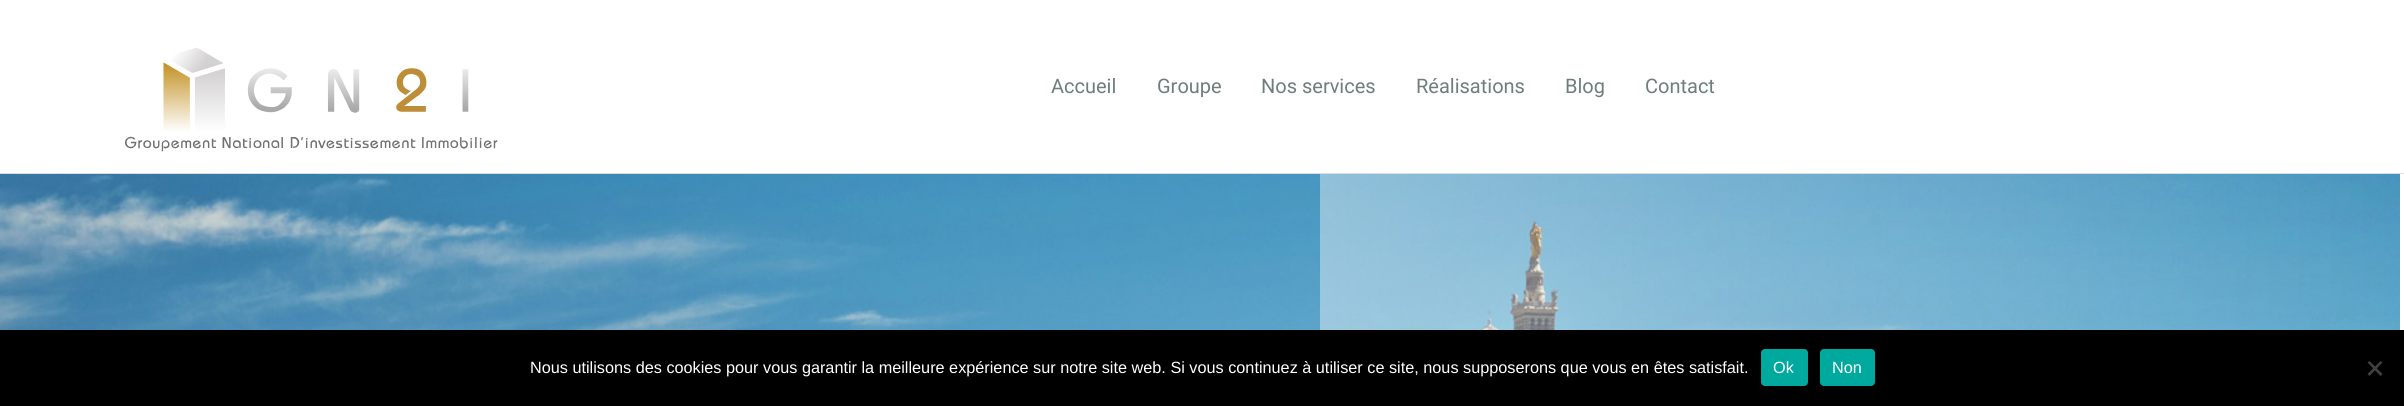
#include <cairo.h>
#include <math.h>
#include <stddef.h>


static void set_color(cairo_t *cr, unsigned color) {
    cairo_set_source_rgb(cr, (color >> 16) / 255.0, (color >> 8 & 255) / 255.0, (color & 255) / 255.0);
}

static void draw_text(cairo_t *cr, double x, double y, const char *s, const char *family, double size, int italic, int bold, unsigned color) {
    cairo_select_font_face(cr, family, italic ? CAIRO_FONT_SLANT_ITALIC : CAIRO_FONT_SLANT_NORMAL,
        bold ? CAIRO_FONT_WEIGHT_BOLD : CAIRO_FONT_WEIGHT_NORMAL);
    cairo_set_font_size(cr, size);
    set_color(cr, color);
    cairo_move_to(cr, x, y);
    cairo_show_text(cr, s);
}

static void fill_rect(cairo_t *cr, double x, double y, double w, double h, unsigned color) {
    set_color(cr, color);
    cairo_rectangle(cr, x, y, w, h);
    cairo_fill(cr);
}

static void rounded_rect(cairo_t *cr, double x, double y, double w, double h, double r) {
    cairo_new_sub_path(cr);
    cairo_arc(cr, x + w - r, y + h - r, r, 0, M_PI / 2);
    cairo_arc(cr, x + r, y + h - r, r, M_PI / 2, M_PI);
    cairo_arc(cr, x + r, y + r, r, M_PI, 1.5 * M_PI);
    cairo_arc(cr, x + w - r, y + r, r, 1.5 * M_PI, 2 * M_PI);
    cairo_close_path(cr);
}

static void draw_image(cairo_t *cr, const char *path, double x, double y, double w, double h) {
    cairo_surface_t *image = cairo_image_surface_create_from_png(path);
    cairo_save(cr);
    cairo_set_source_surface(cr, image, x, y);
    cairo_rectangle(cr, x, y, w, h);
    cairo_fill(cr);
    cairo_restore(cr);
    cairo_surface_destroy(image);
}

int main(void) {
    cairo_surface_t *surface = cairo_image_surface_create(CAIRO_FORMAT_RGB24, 2404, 406);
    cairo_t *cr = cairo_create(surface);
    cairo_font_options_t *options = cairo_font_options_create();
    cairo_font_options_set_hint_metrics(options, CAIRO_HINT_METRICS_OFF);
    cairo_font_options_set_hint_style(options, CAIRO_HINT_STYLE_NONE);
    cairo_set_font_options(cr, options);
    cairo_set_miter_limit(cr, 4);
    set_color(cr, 0xFFFFFF);
    cairo_paint(cr);
    fill_rect(cr, 0, 173, 2404, 1, 0xDDDDDD);
    draw_image(cr, "assets/img1.png", 125, 47, 373, 105);
    draw_text(cr, 1051, 93, "Accueil", "Roboto", 20, 0, 0, 0x6E7E7D);
    draw_text(cr, 1157, 93, "Groupe", "Roboto", 20, 0, 0, 0x6E7E7D);
    draw_text(cr, 1261, 93, "Nos services", "Roboto", 20, 0, 0, 0x6E7E7D);
    draw_text(cr, 1416, 93, "Réalisations", "Roboto", 20, 0, 0, 0x6E7E7D);
    draw_text(cr, 1565, 93, "Blog", "Roboto", 20, 0, 0, 0x6E7E7D);
    draw_text(cr, 1645, 93, "Contact", "Roboto", 20, 0, 0, 0x6E7E7D);
    draw_image(cr, "assets/img2.png", 0, 174, 2400, 156);
    fill_rect(cr, 0, 330, 2404, 76, 0x000000);
    draw_text(cr, 530, 373, "Nous utilisons des cookies pour vous garantir la meilleure expérience sur notre site web. Si vous continuez à utiliser ce site, nous supposerons que vous en êtes satisfait.", "Liberation Sans", 16.25, 0, 0, 0xFFFFFF);
    set_color(cr, 0x00A99D);
    rounded_rect(cr, 1761, 349, 47, 37, 4);
    cairo_fill(cr);
    draw_text(cr, 1773, 373, "Ok", "Liberation Sans", 16.25, 0, 0, 0xFFFFFF);
    set_color(cr, 0x00A99D);
    rounded_rect(cr, 1820, 349, 55, 37, 4);
    cairo_fill(cr);
    draw_text(cr, 1832, 373, "Non", "Liberation Sans", 16.25, 0, 0, 0xFFFFFF);
    set_color(cr, 0x404040);
    cairo_new_path(cr);
    cairo_move_to(cr, 2380.5, 361);
    cairo_line_to(cr, 2382.5, 362.5);
    cairo_line_to(cr, 2369.5, 376);
    cairo_line_to(cr, 2367.5, 374);
    cairo_close_path(cr);
    cairo_fill(cr);
    cairo_new_path(cr);
    cairo_move_to(cr, 2367.5, 362.5);
    cairo_line_to(cr, 2369.5, 361);
    cairo_line_to(cr, 2382.5, 374);
    cairo_line_to(cr, 2380.5, 376);
    cairo_close_path(cr);
    cairo_fill(cr);
    cairo_surface_write_to_png(surface, "output.png");
    cairo_font_options_destroy(options);
    cairo_destroy(cr);
    cairo_surface_destroy(surface);
    return 0;
}
